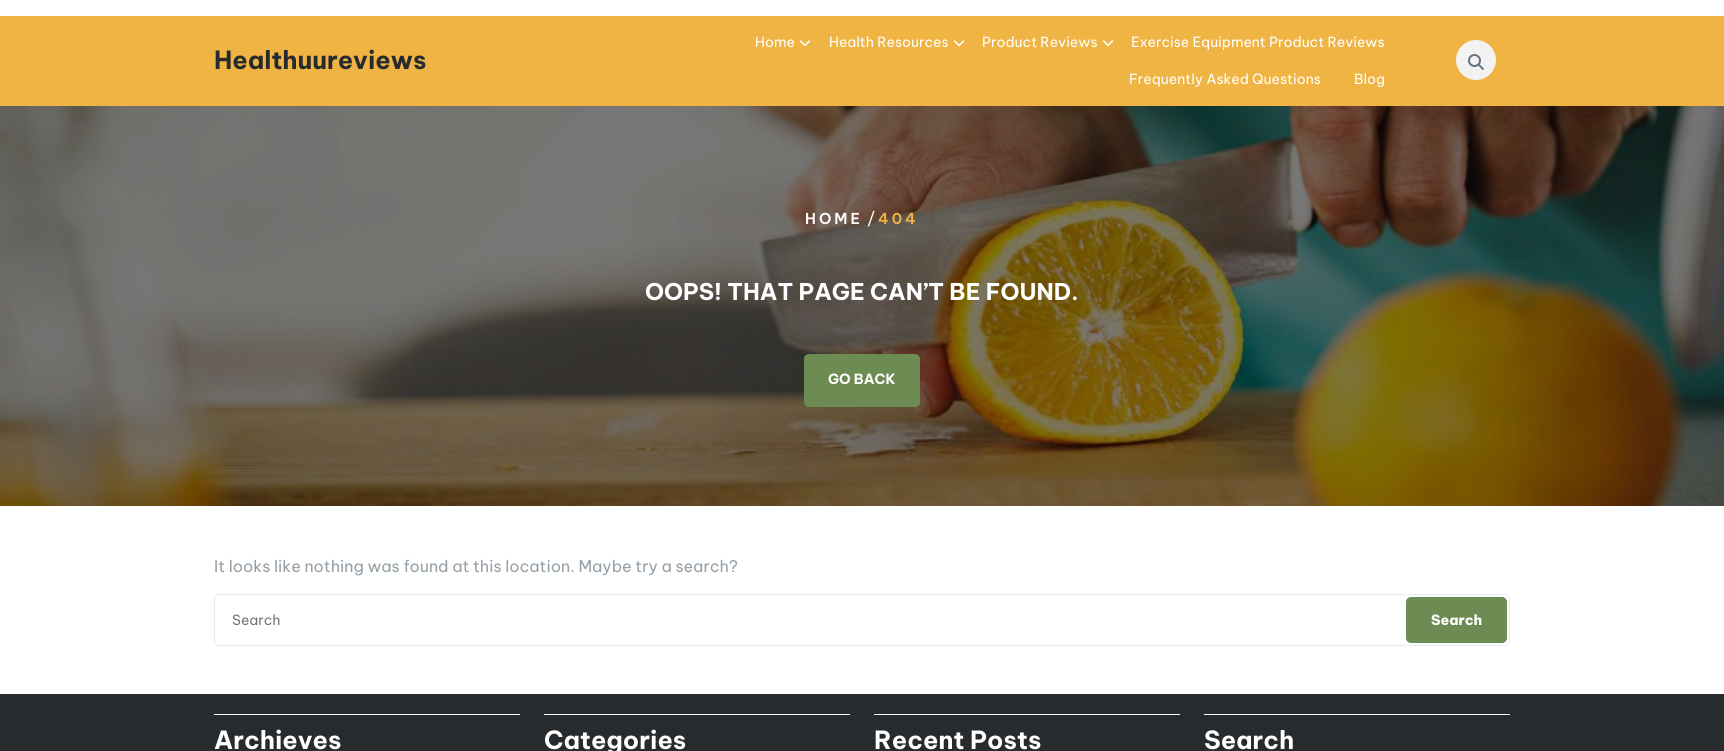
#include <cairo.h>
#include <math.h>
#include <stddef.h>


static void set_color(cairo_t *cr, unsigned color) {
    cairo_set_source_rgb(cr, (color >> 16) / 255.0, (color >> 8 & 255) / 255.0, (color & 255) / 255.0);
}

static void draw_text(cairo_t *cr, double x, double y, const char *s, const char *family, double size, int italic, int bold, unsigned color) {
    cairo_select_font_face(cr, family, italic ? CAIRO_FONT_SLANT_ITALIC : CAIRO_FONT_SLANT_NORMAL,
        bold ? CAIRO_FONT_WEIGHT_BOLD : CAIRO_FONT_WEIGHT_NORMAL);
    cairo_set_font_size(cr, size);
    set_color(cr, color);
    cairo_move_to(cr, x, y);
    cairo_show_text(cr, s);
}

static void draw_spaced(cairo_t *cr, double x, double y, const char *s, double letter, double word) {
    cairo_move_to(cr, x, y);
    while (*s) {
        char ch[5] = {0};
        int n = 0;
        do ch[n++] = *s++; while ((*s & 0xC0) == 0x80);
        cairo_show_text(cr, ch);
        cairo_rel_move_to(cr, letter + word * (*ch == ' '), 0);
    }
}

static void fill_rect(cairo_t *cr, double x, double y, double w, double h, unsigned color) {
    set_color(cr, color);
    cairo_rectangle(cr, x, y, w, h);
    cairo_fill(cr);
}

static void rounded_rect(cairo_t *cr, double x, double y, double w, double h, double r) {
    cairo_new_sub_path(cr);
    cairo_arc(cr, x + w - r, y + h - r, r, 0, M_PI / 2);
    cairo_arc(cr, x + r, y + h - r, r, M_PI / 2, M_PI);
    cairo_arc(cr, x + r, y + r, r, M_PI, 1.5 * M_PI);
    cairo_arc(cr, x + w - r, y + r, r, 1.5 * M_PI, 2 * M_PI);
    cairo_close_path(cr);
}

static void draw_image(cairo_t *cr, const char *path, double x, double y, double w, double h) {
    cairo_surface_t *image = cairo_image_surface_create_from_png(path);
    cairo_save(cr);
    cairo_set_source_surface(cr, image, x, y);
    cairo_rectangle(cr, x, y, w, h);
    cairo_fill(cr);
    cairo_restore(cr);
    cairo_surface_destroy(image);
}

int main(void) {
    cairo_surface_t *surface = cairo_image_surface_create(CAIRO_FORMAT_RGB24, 1724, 751);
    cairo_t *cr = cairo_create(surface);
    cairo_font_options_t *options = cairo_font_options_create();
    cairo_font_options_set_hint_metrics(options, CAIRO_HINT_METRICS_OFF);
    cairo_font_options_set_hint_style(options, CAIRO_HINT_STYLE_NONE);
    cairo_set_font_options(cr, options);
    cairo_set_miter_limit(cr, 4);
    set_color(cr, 0xFFFFFF);
    cairo_paint(cr);
    fill_rect(cr, 0, 16, 1724, 90, 0xEFB443);
    draw_text(cr, 214, 69, "Healthuureviews", "Be Vietnam Pro", 25, 0, 1, 0x282B2D);
    draw_text(cr, 755, 47, "Home", "Be Vietnam Pro", 14, 0, 0, 0xFFFFFF);
    draw_image(cr, "assets/img1.png", 799, 40, 12, 7);
    draw_text(cr, 829, 47, "Health Resources", "Be Vietnam Pro", 14, 0, 0, 0xFFFFFF);
    draw_image(cr, "assets/img1.png", 953, 40, 12, 7);
    draw_text(cr, 982, 47, "Product Reviews", "Be Vietnam Pro", 14, 0, 0, 0xFFFFFF);
    draw_image(cr, "assets/img1.png", 1102, 40, 12, 7);
    draw_text(cr, 1131, 47, "Exercise Equipment Product Reviews", "Be Vietnam Pro", 14, 0, 0, 0xFFFFFF);
    draw_text(cr, 1129, 84, "Frequently Asked Questions", "Be Vietnam Pro", 14, 0, 0, 0xFFFFFF);
    draw_text(cr, 1354, 84, "Blog", "Be Vietnam Pro", 14, 0, 0, 0xFFFFFF);
    set_color(cr, 0xF2F2F2);
    cairo_new_path(cr);
    cairo_arc(cr, 1476, 60, 20, 0, 2 * M_PI);
    cairo_fill(cr);
    draw_image(cr, "assets/img2.png", 1468, 54, 16, 16);
    fill_rect(cr, 0, 106, 1724, 400, 0x000000);
    draw_image(cr, "assets/img3.png", 0, 106, 1724, 400);
    cairo_select_font_face(cr, "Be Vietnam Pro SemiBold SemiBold", CAIRO_FONT_SLANT_NORMAL, CAIRO_FONT_WEIGHT_NORMAL);
    cairo_set_font_size(cr, 15);
    set_color(cr, 0xFFFFFF);
    draw_spaced(cr, 805, 224, "HOME", 3, 0);
    draw_text(cr, 867, 224, "/", "Be Vietnam Pro", 16, 0, 0, 0xFFFFFF);
    cairo_select_font_face(cr, "Be Vietnam Pro SemiBold SemiBold", CAIRO_FONT_SLANT_NORMAL, CAIRO_FONT_WEIGHT_NORMAL);
    cairo_set_font_size(cr, 15);
    set_color(cr, 0xEFB443);
    draw_spaced(cr, 878, 224, "404", 3, 0);
    draw_text(cr, 645, 300, "OOPS! THAT PAGE CAN’T BE FOUND.", "Be Vietnam Pro", 23, 0, 1, 0xFFFFFF);
    set_color(cr, 0x6D8C54);
    rounded_rect(cr, 804, 354, 116, 53, 5);
    cairo_fill(cr);
    draw_text(cr, 828, 384, "GO BACK", "Be Vietnam Pro", 14, 0, 1, 0xFFFFFF);
    draw_text(cr, 214, 572, "It looks like nothing was found at this location. Maybe try a search?", "Be Vietnam Pro", 16, 0, 0, 0x949FA7);
    rounded_rect(cr, 214.5, 594.5, 1295, 51, 4.5);
    set_color(cr, 0xE5EAEC);
    cairo_set_line_width(cr, 1);
    cairo_stroke(cr);
    draw_text(cr, 232, 625, "Search", "Be Vietnam Pro", 14, 0, 0, 0x757575);
    set_color(cr, 0x6D8C54);
    rounded_rect(cr, 1406, 597, 101, 46, 5);
    cairo_fill(cr);
    draw_text(cr, 1431, 625, "Search", "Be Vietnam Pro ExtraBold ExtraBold", 14, 0, 0, 0xFFFFFF);
    fill_rect(cr, 0, 694, 1724, 57, 0x282B2D);
    fill_rect(cr, 214, 714, 306, 1, 0xFFFFFF);
    draw_text(cr, 214, 749, "Archieves", "Be Vietnam Pro", 25, 0, 1, 0xFFFFFF);
    fill_rect(cr, 544, 714, 306, 1, 0xFFFFFF);
    draw_text(cr, 544, 749, "Categories", "Be Vietnam Pro", 25, 0, 1, 0xFFFFFF);
    fill_rect(cr, 874, 714, 306, 1, 0xFFFFFF);
    draw_text(cr, 874, 749, "Recent Posts", "Be Vietnam Pro", 25, 0, 1, 0xFFFFFF);
    fill_rect(cr, 1204, 714, 306, 1, 0xFFFFFF);
    draw_text(cr, 1204, 749, "Search", "Be Vietnam Pro", 25, 0, 1, 0xFFFFFF);
    cairo_surface_write_to_png(surface, "output.png");
    cairo_font_options_destroy(options);
    cairo_destroy(cr);
    cairo_surface_destroy(surface);
    return 0;
}
